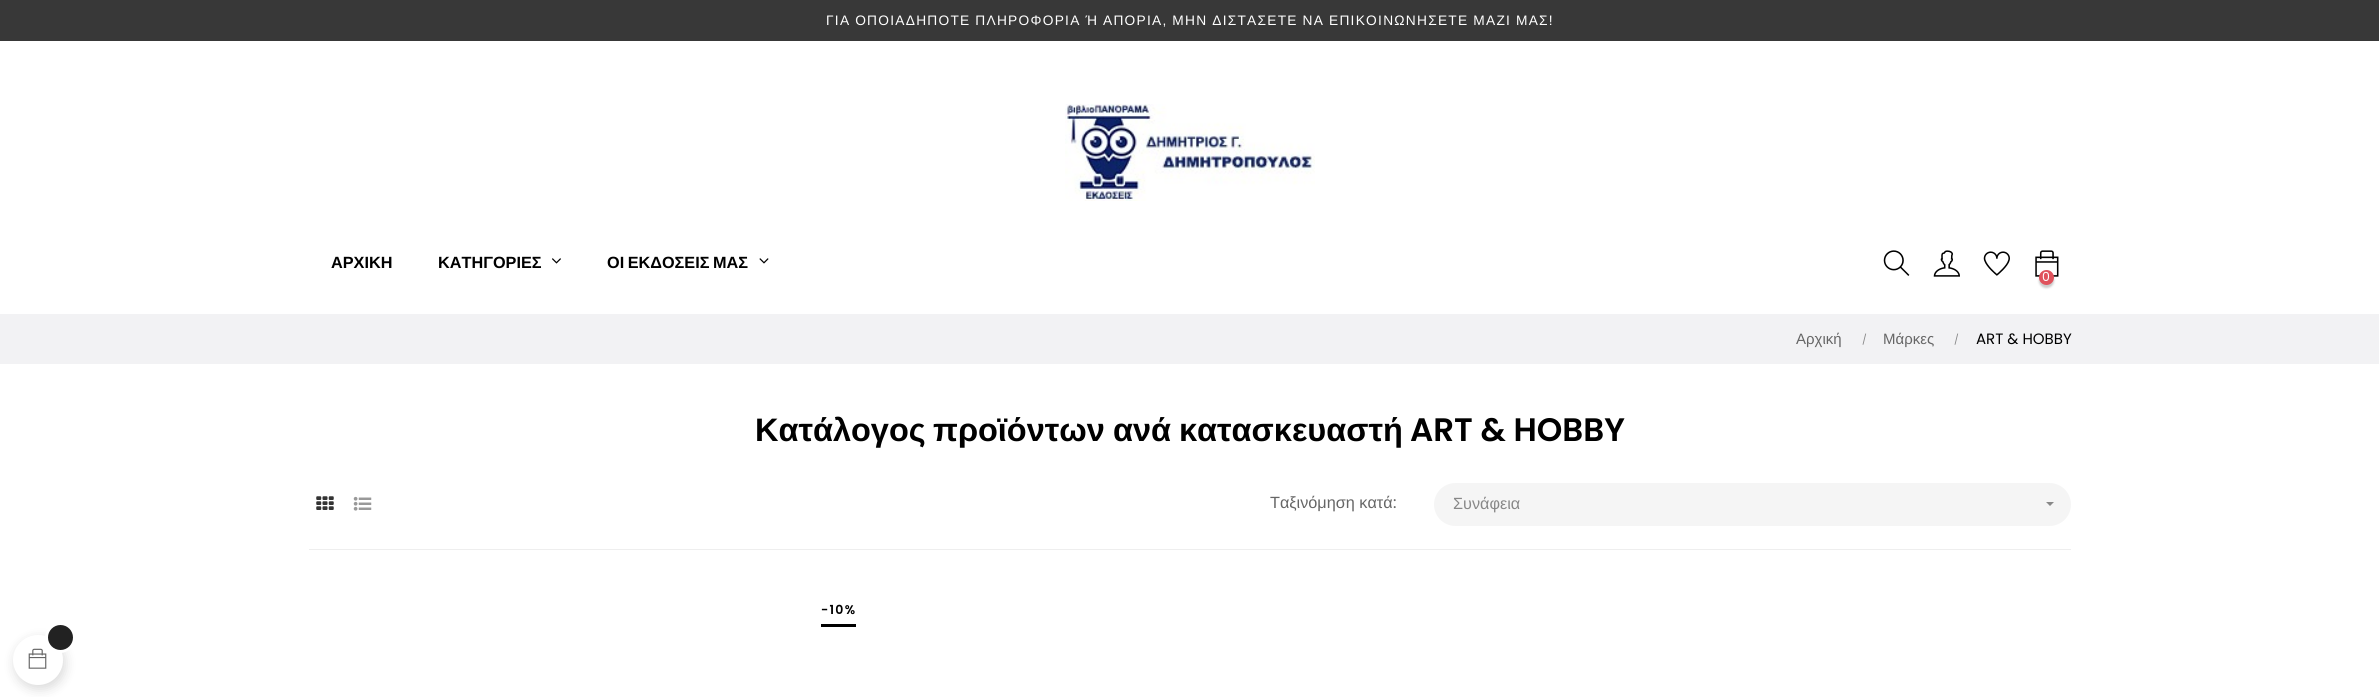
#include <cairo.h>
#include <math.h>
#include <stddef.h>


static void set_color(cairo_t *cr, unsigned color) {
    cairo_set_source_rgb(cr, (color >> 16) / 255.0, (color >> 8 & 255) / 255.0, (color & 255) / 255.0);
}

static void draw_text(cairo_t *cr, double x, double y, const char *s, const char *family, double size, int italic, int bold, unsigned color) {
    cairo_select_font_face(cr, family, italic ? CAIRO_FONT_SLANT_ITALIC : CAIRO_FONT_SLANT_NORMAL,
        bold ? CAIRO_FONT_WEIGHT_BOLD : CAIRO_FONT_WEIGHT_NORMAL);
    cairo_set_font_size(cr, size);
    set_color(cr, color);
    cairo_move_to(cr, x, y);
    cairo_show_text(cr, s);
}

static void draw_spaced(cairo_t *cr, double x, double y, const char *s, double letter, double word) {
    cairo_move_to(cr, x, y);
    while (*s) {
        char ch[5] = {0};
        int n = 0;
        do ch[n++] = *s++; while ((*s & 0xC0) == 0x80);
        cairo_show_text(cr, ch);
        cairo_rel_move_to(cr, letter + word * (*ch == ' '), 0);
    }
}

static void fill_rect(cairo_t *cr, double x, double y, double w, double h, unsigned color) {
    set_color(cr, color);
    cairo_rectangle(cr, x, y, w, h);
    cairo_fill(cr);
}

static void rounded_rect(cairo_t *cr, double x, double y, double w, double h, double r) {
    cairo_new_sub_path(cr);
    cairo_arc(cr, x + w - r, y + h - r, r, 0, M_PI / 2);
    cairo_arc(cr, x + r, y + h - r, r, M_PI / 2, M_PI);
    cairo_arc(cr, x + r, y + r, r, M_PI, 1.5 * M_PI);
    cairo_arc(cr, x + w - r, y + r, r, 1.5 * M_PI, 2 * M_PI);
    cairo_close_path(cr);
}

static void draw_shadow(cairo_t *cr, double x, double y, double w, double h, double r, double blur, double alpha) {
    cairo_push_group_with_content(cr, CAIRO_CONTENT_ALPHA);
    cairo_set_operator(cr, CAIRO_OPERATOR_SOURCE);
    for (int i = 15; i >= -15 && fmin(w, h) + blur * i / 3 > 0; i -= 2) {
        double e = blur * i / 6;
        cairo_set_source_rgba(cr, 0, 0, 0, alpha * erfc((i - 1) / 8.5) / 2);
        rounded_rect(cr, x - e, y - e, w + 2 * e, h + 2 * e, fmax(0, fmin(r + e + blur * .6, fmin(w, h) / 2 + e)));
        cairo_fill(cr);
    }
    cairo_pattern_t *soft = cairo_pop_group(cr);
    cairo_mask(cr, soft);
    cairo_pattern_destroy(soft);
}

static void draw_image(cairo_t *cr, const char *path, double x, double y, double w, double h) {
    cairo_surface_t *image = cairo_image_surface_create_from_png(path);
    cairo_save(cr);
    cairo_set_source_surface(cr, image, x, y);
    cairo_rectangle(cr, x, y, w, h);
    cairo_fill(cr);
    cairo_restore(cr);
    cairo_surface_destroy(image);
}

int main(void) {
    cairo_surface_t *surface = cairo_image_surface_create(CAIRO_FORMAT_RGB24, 2379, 697);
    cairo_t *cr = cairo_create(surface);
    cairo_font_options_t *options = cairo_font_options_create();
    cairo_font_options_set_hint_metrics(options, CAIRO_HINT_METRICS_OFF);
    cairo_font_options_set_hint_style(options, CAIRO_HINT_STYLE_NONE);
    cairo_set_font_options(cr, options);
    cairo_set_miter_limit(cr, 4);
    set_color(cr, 0xFFFFFF);
    cairo_paint(cr);
    fill_rect(cr, 0, 0, 2379, 41, 0x383838);
    cairo_select_font_face(cr, "Liberation Sans", CAIRO_FONT_SLANT_NORMAL, CAIRO_FONT_WEIGHT_NORMAL);
    cairo_set_font_size(cr, 13.75);
    set_color(cr, 0xFFFFFF);
    draw_spaced(cr, 826, 25, "ΓΙΑ ΟΠΟΙΑΔΗΠΟΤΕ ΠΛΗΡΟΦΟΡΙΑ Ή ΑΠΟΡΙΑ, ΜΗΝ ΔΙΣΤΑΣΕΤΕ ΝΑ ΕΠΙΚΟΙΝΩΝΗΣΕΤΕ ΜΑΖΙ ΜΑΣ!", 1.25, -0.25);
    draw_image(cr, "assets/img1.png", 1065, 104, 250, 97);
    draw_text(cr, 331, 268, "ΑΡΧΙΚΗ", "Liberation Sans", 16.25, 0, 1, 0x000000);
    draw_text(cr, 438, 268, "ΚΑΤΗΓΟΡΙΕΣ", "Liberation Sans", 16.25, 0, 1, 0x000000);
    draw_image(cr, "assets/img2.png", 552, 258, 9, 6);
    draw_spaced(cr, 607, 268, "ΟΙ ΕΚΔΟΣΕΙΣ ΜΑΣ", 0, -1);
    draw_image(cr, "assets/img3.png", 759, 258, 10, 6);
    draw_image(cr, "assets/img4.png", 1883, 250, 27, 26);
    draw_image(cr, "assets/img5.png", 1933, 250, 27, 27);
    draw_image(cr, "assets/img6.png", 1983, 251, 27, 25);
    draw_image(cr, "assets/img7.png", 2035, 250, 24, 27);
    set_color(cr, 0x000000);
    draw_shadow(cr, 2039, 273, 15, 15, 7.5, 1, 0.2);
    set_color(cr, 0xE0525C);
    cairo_arc(cr, 2046.5, 277.5, 7.5, 0, 2 * M_PI);
    cairo_fill(cr);
    draw_text(cr, 2042, 281, "0", "Poppins", 12.5, 0, 0, 0xFFFFFF);
    fill_rect(cr, 0, 314, 2379, 50, 0xF2F2F4);
    draw_text(cr, 1796, 344, "Αρχική", "Liberation Sans", 15, 0, 0, 0x666666);
    draw_text(cr, 1862, 343, "/", "Poppins", 10, 0, 0, 0x888888);
    draw_text(cr, 1883, 344, "Μάρκες", "Liberation Sans", 15, 0, 0, 0x666666);
    draw_text(cr, 1954, 343, "/", "Poppins", 10, 0, 0, 0x888888);
    draw_text(cr, 1976, 344, "ART & HOBBY", "Poppins", 15, 0, 0, 0x000000);
    draw_text(cr, 755, 441, "Κατάλογος", "Liberation Sans", 32.5, 0, 1, 0x000000);
    draw_text(cr, 933, 441, "προϊόντων", "Liberation Sans", 32.5, 0, 1, 0x000000);
    draw_text(cr, 1113, 441, "ανά", "Liberation Sans", 32.5, 0, 1, 0x000000);
    draw_text(cr, 1179, 441, "κατασκευαστή", "Liberation Sans", 32.5, 0, 1, 0x000000);
    draw_text(cr, 1410, 441, "ART & HOBBY", "Poppins SemiBold", 32.5, 0, 0, 0x000000);
    fill_rect(cr, 309, 549, 1762, 1, 0xEEEEEE);
    draw_image(cr, "assets/img8.png", 316, 496, 18, 14);
    draw_image(cr, "assets/img9.png", 353, 496, 19, 15);
    draw_text(cr, 1270, 508, "Ταξινόμηση κατά", "Liberation Sans", 16.25, 0, 0, 0x666666);
    draw_text(cr, 1393, 508, ":", "Poppins", 16.25, 0, 0, 0x666666);
    set_color(cr, 0xF5F5F5);
    rounded_rect(cr, 1434, 483, 637, 43, 21.5);
    cairo_fill(cr);
    draw_text(cr, 1453, 509, "Συνάφεια", "Liberation Sans", 16.25, 0, 0, 0x888888);
    cairo_new_path(cr);
    cairo_move_to(cr, 2046, 502);
    cairo_line_to(cr, 2054, 502);
    cairo_line_to(cr, 2050, 506);
    cairo_close_path(cr);
    cairo_fill(cr);
    fill_rect(cr, 821, 624, 35, 3, 0x000000);
    cairo_select_font_face(cr, "Poppins SemiBold", CAIRO_FONT_SLANT_NORMAL, CAIRO_FONT_WEIGHT_NORMAL);
    cairo_set_font_size(cr, 12.5);
    draw_spaced(cr, 821, 614, "-10%", 1.25, 0);
    set_color(cr, 0x000000);
    draw_shadow(cr, 15, 639, 50, 50, 25, 6, 0.15);
    set_color(cr, 0xFFFFFF);
    cairo_arc(cr, 38, 660, 25, 0, 2 * M_PI);
    cairo_fill(cr);
    draw_image(cr, "assets/img10.png", 28, 648, 19, 21);
    cairo_arc(cr, 60, 638, 13.5, 0, 2 * M_PI);
    cairo_set_line_width(cr, 3);
    cairo_stroke(cr);
    set_color(cr, 0x222222);
    cairo_arc(cr, 60.5, 637.5, 12.5, 0, 2 * M_PI);
    cairo_fill(cr);
    cairo_surface_write_to_png(surface, "output.png");
    cairo_font_options_destroy(options);
    cairo_destroy(cr);
    cairo_surface_destroy(surface);
    return 0;
}
